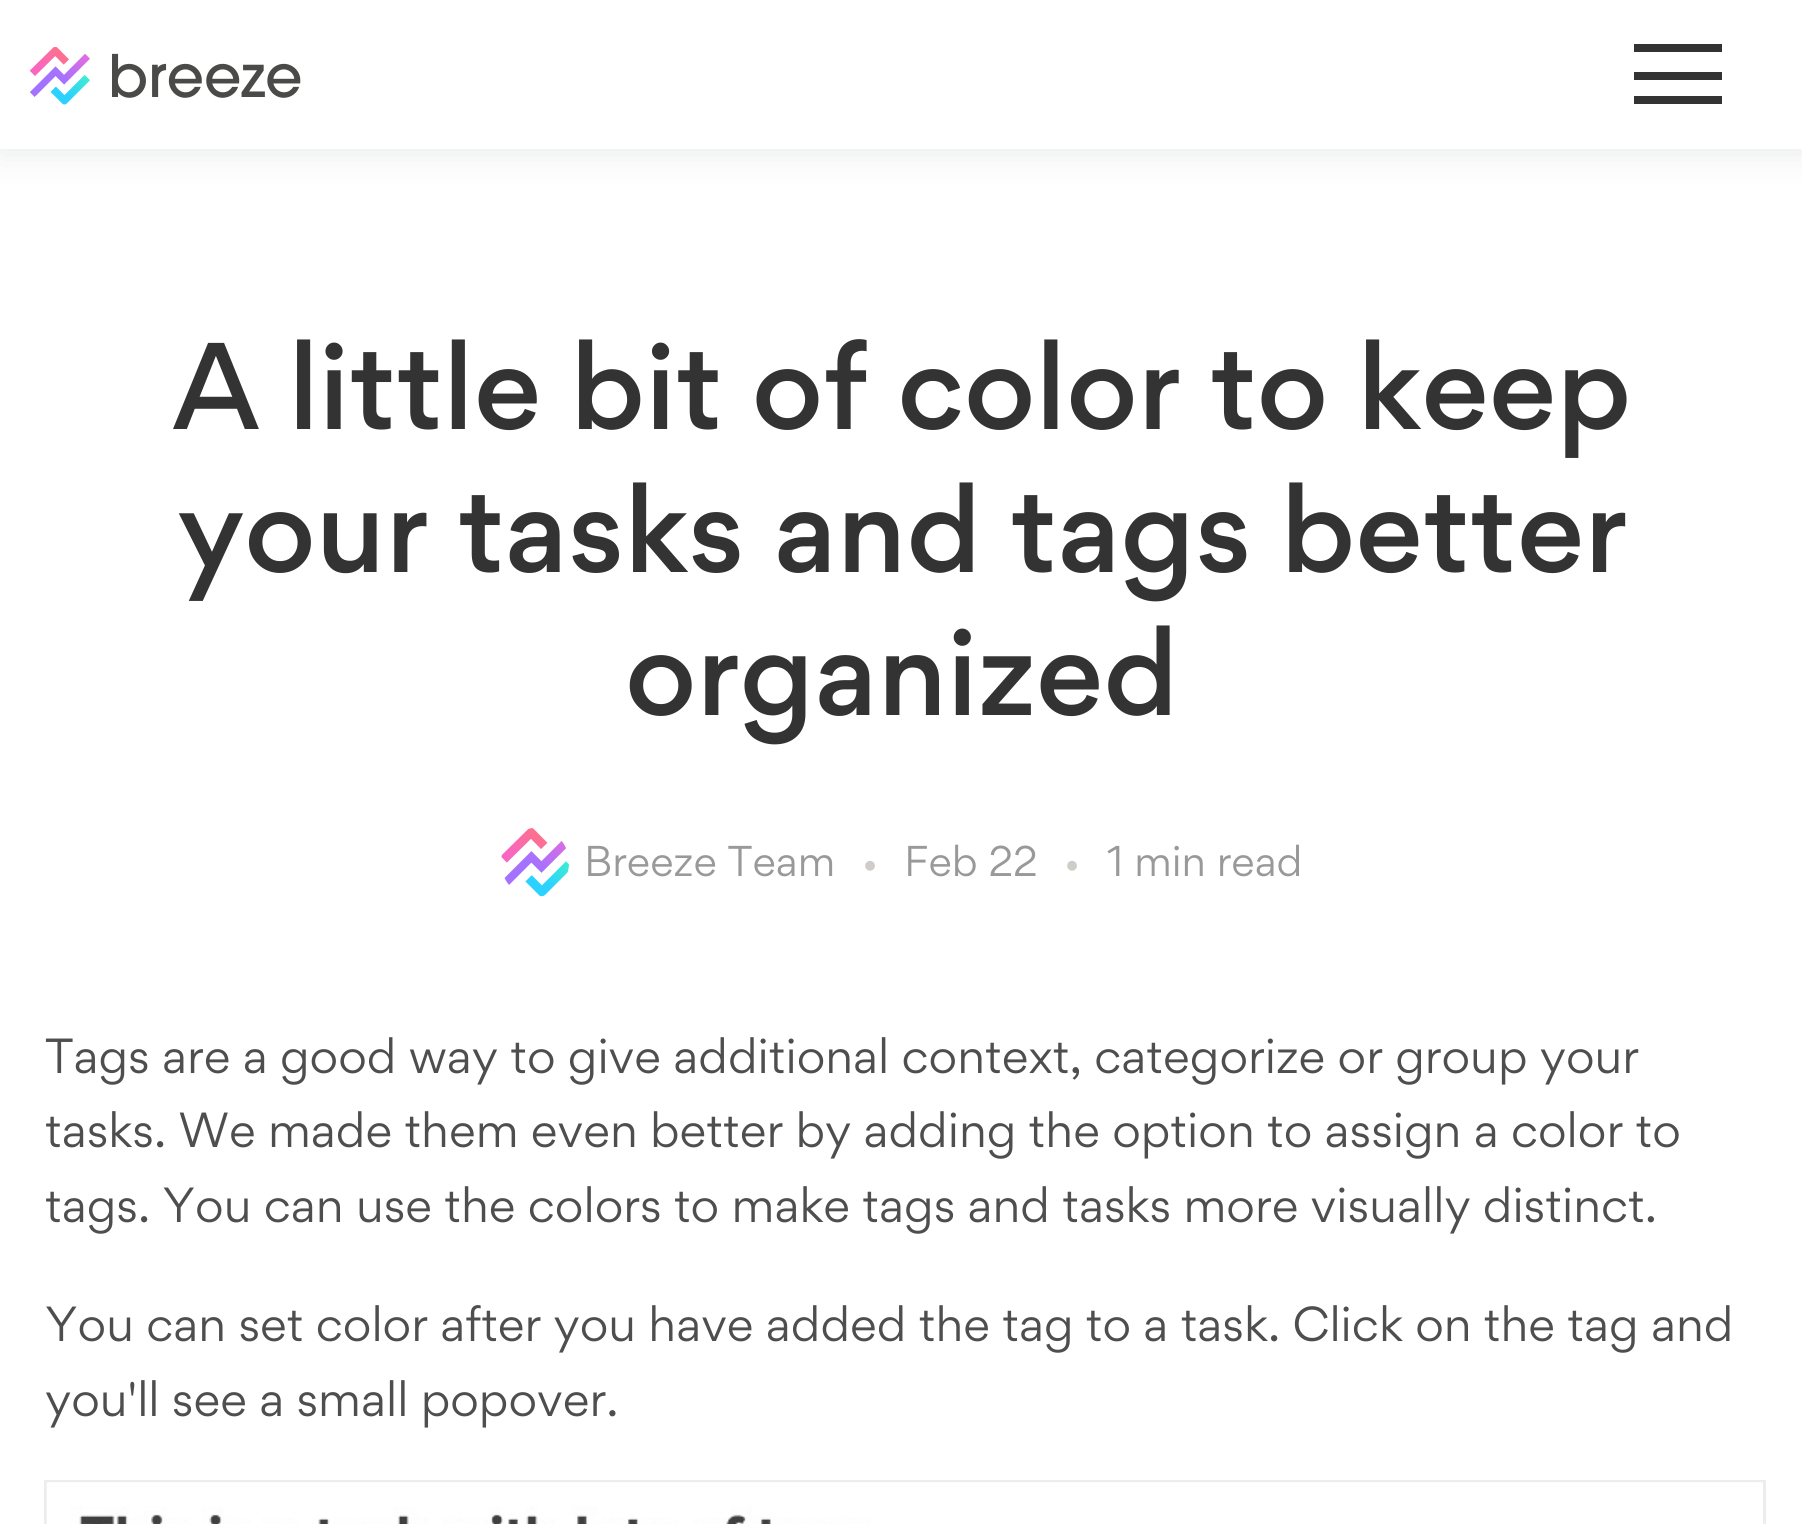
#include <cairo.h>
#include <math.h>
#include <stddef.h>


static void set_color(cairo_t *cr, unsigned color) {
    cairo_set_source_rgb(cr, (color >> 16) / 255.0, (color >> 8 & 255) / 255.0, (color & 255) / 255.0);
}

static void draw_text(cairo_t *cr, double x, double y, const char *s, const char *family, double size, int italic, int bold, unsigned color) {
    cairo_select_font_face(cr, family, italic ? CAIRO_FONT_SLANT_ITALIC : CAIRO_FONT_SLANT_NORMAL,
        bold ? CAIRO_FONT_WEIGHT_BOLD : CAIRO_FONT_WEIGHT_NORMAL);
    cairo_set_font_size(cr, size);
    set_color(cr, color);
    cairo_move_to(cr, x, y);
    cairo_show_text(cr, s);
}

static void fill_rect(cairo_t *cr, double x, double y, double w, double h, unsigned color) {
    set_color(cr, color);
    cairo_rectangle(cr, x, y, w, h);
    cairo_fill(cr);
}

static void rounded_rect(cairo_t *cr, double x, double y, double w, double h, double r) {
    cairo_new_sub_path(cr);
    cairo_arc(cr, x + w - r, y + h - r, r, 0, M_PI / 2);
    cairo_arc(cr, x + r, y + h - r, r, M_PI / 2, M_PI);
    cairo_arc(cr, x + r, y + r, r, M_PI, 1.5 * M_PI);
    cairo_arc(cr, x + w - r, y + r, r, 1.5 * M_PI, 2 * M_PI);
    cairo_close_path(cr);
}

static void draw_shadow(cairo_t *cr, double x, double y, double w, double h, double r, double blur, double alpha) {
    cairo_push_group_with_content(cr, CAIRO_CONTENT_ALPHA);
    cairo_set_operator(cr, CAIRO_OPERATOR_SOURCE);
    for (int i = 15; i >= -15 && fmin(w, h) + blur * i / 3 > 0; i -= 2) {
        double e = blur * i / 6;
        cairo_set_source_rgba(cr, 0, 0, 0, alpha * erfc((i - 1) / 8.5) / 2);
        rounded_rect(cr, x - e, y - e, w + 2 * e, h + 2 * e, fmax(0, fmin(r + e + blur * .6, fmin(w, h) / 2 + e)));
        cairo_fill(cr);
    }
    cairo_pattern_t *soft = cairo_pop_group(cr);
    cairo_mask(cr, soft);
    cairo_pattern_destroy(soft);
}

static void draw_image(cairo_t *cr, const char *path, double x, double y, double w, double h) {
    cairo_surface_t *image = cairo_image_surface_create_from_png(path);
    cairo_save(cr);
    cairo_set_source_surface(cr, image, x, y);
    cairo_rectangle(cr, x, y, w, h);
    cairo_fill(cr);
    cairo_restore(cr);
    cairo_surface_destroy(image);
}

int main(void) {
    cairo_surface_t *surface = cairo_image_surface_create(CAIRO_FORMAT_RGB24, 1802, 1524);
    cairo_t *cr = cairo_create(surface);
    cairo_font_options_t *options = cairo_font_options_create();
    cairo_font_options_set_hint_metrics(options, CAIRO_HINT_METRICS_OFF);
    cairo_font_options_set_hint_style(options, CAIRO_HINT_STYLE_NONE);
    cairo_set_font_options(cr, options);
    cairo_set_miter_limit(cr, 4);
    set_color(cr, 0xFFFFFF);
    cairo_paint(cr);
    cairo_save(cr);
    cairo_set_fill_rule(cr, CAIRO_FILL_RULE_EVEN_ODD);
    cairo_new_path(cr);
    cairo_move_to(cr, 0, 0);
    cairo_line_to(cr, 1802, 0);
    cairo_line_to(cr, 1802, 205);
    cairo_line_to(cr, 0, 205);
    cairo_close_path(cr);
    cairo_move_to(cr, 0, 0);
    cairo_line_to(cr, 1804, 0);
    cairo_line_to(cr, 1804, 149);
    cairo_line_to(cr, 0, 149);
    cairo_close_path(cr);
    cairo_clip(cr);
    set_color(cr, 0x243242);
    draw_shadow(cr, 0, 6, 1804, 148, 0, 16.5, 0.1);
    cairo_restore(cr);
    cairo_set_source_rgba(cr, 1, 1, 1, 0.95);
    cairo_rectangle(cr, 0, 148, 1802, 1);
    cairo_fill(cr);
    draw_image(cr, "assets/img1.png", 29, 47, 272, 58);
    fill_rect(cr, 1634, 72, 88, 8, 0x333333);
    fill_rect(cr, 1634, 44, 88, 8, 0x333333);
    fill_rect(cr, 1634, 96, 88, 8, 0x333333);
    draw_text(cr, 173, 429, "A little bit of color to keep", "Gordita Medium", 110, 0, 0, 0x333333);
    draw_text(cr, 177, 572, "your tasks and tags better", "Gordita Medium", 110, 0, 0, 0x333333);
    draw_text(cr, 625, 715, "organized", "Gordita Medium", 110, 0, 0, 0x333333);
    draw_image(cr, "assets/img2.png", 501, 828, 68, 69);
    draw_text(cr, 584, 876, "Breeze Team", "Gordita", 38.5, 0, 0, 0x999999);
    draw_text(cr, 863, 876, "•", "Gordita", 28, 0, 0, 0xD0CDC8);
    draw_text(cr, 904, 876, "Feb 22", "Gordita", 38.5, 0, 0, 0x999999);
    draw_text(cr, 1065, 876, "•", "Gordita", 28, 0, 0, 0xD0CDC8);
    draw_text(cr, 1107, 876, "1 min read", "Gordita", 38.5, 0, 0, 0x999999);
    draw_text(cr, 45, 1073, "Tags are a good way to give additional context, categorize or group your", "Gordita", 44, 0, 0, 0x4E4E4E);
    draw_text(cr, 45, 1147, "tasks. We made them even better by adding the option to assign a color to", "Gordita", 44, 0, 0, 0x4E4E4E);
    draw_text(cr, 45, 1222, "tags. You can use the colors to make tags and tasks more visually distinct.", "Gordita", 44, 0, 0, 0x4E4E4E);
    draw_text(cr, 45, 1341, "You can set color after you have added the tag to a task. Click on the tag and", "Gordita", 44, 0, 0, 0x4E4E4E);
    draw_text(cr, 45, 1416, "you'll see a small popover.", "Gordita", 44, 0, 0, 0x4E4E4E);
    cairo_rectangle(cr, 45.5, 1481.5, 1719, 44);
    set_color(cr, 0xEDEDED);
    cairo_set_line_width(cr, 3);
    cairo_stroke(cr);
    draw_image(cr, "assets/img3.png", 46, 1482, 1717, 42);
    cairo_surface_write_to_png(surface, "output.png");
    cairo_font_options_destroy(options);
    cairo_destroy(cr);
    cairo_surface_destroy(surface);
    return 0;
}
